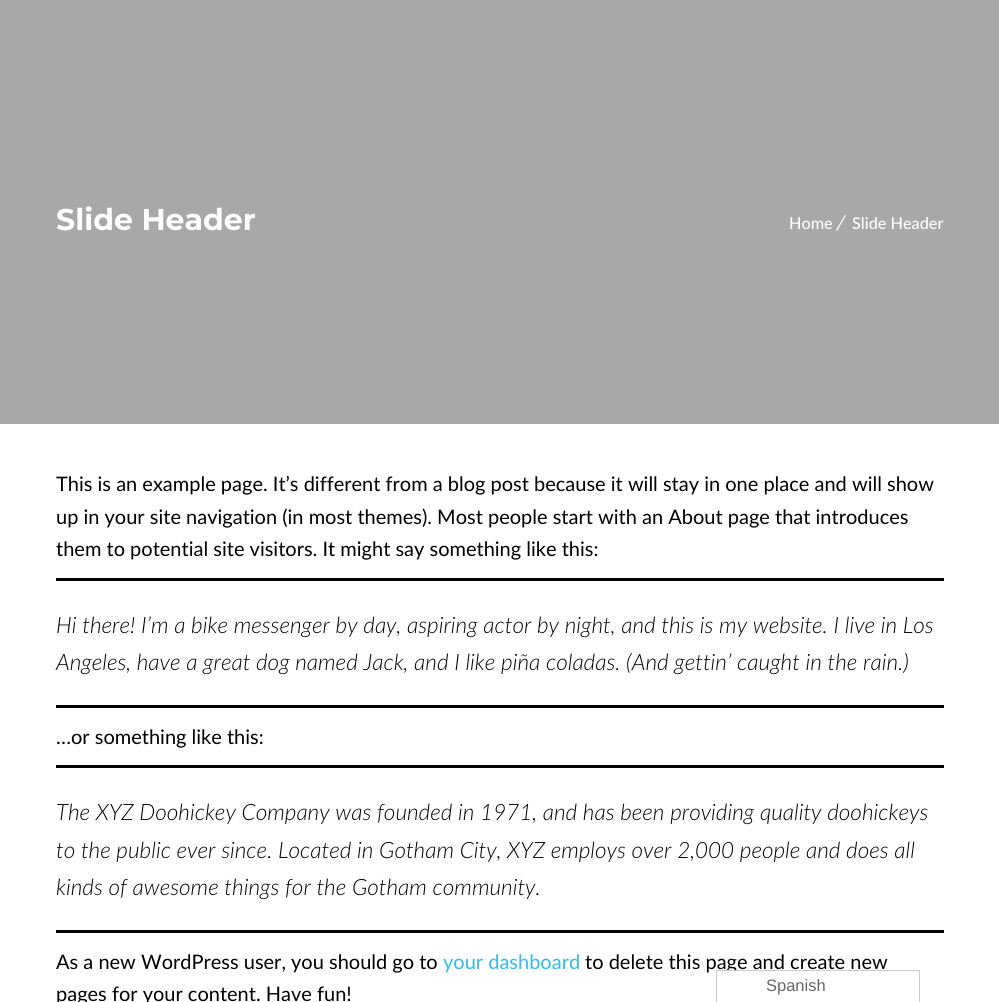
#include <cairo.h>
#include <math.h>
#include <stddef.h>


static void set_color(cairo_t *cr, unsigned color) {
    cairo_set_source_rgb(cr, (color >> 16) / 255.0, (color >> 8 & 255) / 255.0, (color & 255) / 255.0);
}

static void draw_text(cairo_t *cr, double x, double y, const char *s, const char *family, double size, int italic, int bold, unsigned color) {
    cairo_select_font_face(cr, family, italic ? CAIRO_FONT_SLANT_ITALIC : CAIRO_FONT_SLANT_NORMAL,
        bold ? CAIRO_FONT_WEIGHT_BOLD : CAIRO_FONT_WEIGHT_NORMAL);
    cairo_set_font_size(cr, size);
    set_color(cr, color);
    cairo_move_to(cr, x, y);
    cairo_show_text(cr, s);
}

static void fill_rect(cairo_t *cr, double x, double y, double w, double h, unsigned color) {
    set_color(cr, color);
    cairo_rectangle(cr, x, y, w, h);
    cairo_fill(cr);
}

int main(void) {
    cairo_surface_t *surface = cairo_image_surface_create(CAIRO_FORMAT_RGB24, 999, 1002);
    cairo_t *cr = cairo_create(surface);
    cairo_font_options_t *options = cairo_font_options_create();
    cairo_font_options_set_hint_metrics(options, CAIRO_HINT_METRICS_OFF);
    cairo_font_options_set_hint_style(options, CAIRO_HINT_STYLE_NONE);
    cairo_set_font_options(cr, options);
    cairo_set_miter_limit(cr, 4);
    set_color(cr, 0xFFFFFF);
    cairo_paint(cr);
    fill_rect(cr, 0, 0, 999, 424, 0xA8A8A8);
    draw_text(cr, 56, 230, "Slide Header", "Montserrat", 30, 0, 1, 0xFFFFFF);
    draw_text(cr, 789, 229, "Home", "Lato Medium", 16.25, 0, 0, 0xFFFFFF);
    cairo_new_path(cr);
    cairo_move_to(cr, 845, 215);
    cairo_line_to(cr, 846, 215.5);
    cairo_line_to(cr, 837, 231);
    cairo_line_to(cr, 836, 230);
    cairo_close_path(cr);
    cairo_fill(cr);
    draw_text(cr, 852, 229, "Slide Header", "Lato Medium", 16.25, 0, 0, 0xFFFFFF);
    draw_text(cr, 56, 491, "This is an example page. It’s different from a blog post because it will stay in one place and will show", "Lato", 20, 0, 0, 0x000000);
    draw_text(cr, 56, 524, "up in your site navigation (in most themes). Most people start with an About page that introduces", "Lato", 20, 0, 0, 0x000000);
    draw_text(cr, 56, 556, "them to potential site visitors. It might say something like this:", "Lato", 20, 0, 0, 0x000000);
    fill_rect(cr, 56, 578, 888, 3, 0x000000);
    fill_rect(cr, 56, 705, 888, 3, 0x000000);
    draw_text(cr, 56, 633, "Hi there! I’m a bike messenger by day, aspiring actor by night, and this is my website. I live in Los", "Lato Light", 22.5, 1, 0, 0x000000);
    draw_text(cr, 56, 670, "Angeles, have a great dog named Jack, and I like piña coladas. (And gettin’ caught in the rain.)", "Lato Light", 22.5, 1, 0, 0x000000);
    draw_text(cr, 56, 744, "…or something like this:", "Lato", 20, 0, 0, 0x000000);
    fill_rect(cr, 56, 765, 888, 3, 0x000000);
    fill_rect(cr, 56, 930, 888, 3, 0x000000);
    draw_text(cr, 56, 820, "The XYZ Doohickey Company was founded in 1971, and has been providing quality doohickeys", "Lato Light", 22.5, 1, 0, 0x000000);
    draw_text(cr, 56, 858, "to the public ever since. Located in Gotham City, XYZ employs over 2,000 people and does all", "Lato Light", 22.5, 1, 0, 0x000000);
    draw_text(cr, 56, 895, "kinds of awesome things for the Gotham community.", "Lato Light", 22.5, 1, 0, 0x000000);
    draw_text(cr, 56, 969, "As a new WordPress user, you should go to", "Lato", 20, 0, 0, 0x000000);
    draw_text(cr, 443, 969, "your dashboard", "Lato", 20, 0, 0, 0x30BAED);
    draw_text(cr, 585, 969, "to delete this page and create new", "Lato", 20, 0, 0, 0x000000);
    draw_text(cr, 56, 1001, "pages for your content. Have fun!", "Lato", 20, 0, 0, 0x000000);
    fill_rect(cr, 727, 971, 9, 2, 0xFFFFFF);
    cairo_rectangle(cr, 716.5, 970.5, 203, 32);
    set_color(cr, 0xCCCCCC);
    cairo_set_line_width(cr, 1);
    cairo_stroke(cr);
    draw_text(cr, 766, 991, "Spanish", "Liberation Sans", 16.5, 0, 0, 0x666666);
    cairo_surface_write_to_png(surface, "output.png");
    cairo_font_options_destroy(options);
    cairo_destroy(cr);
    cairo_surface_destroy(surface);
    return 0;
}
